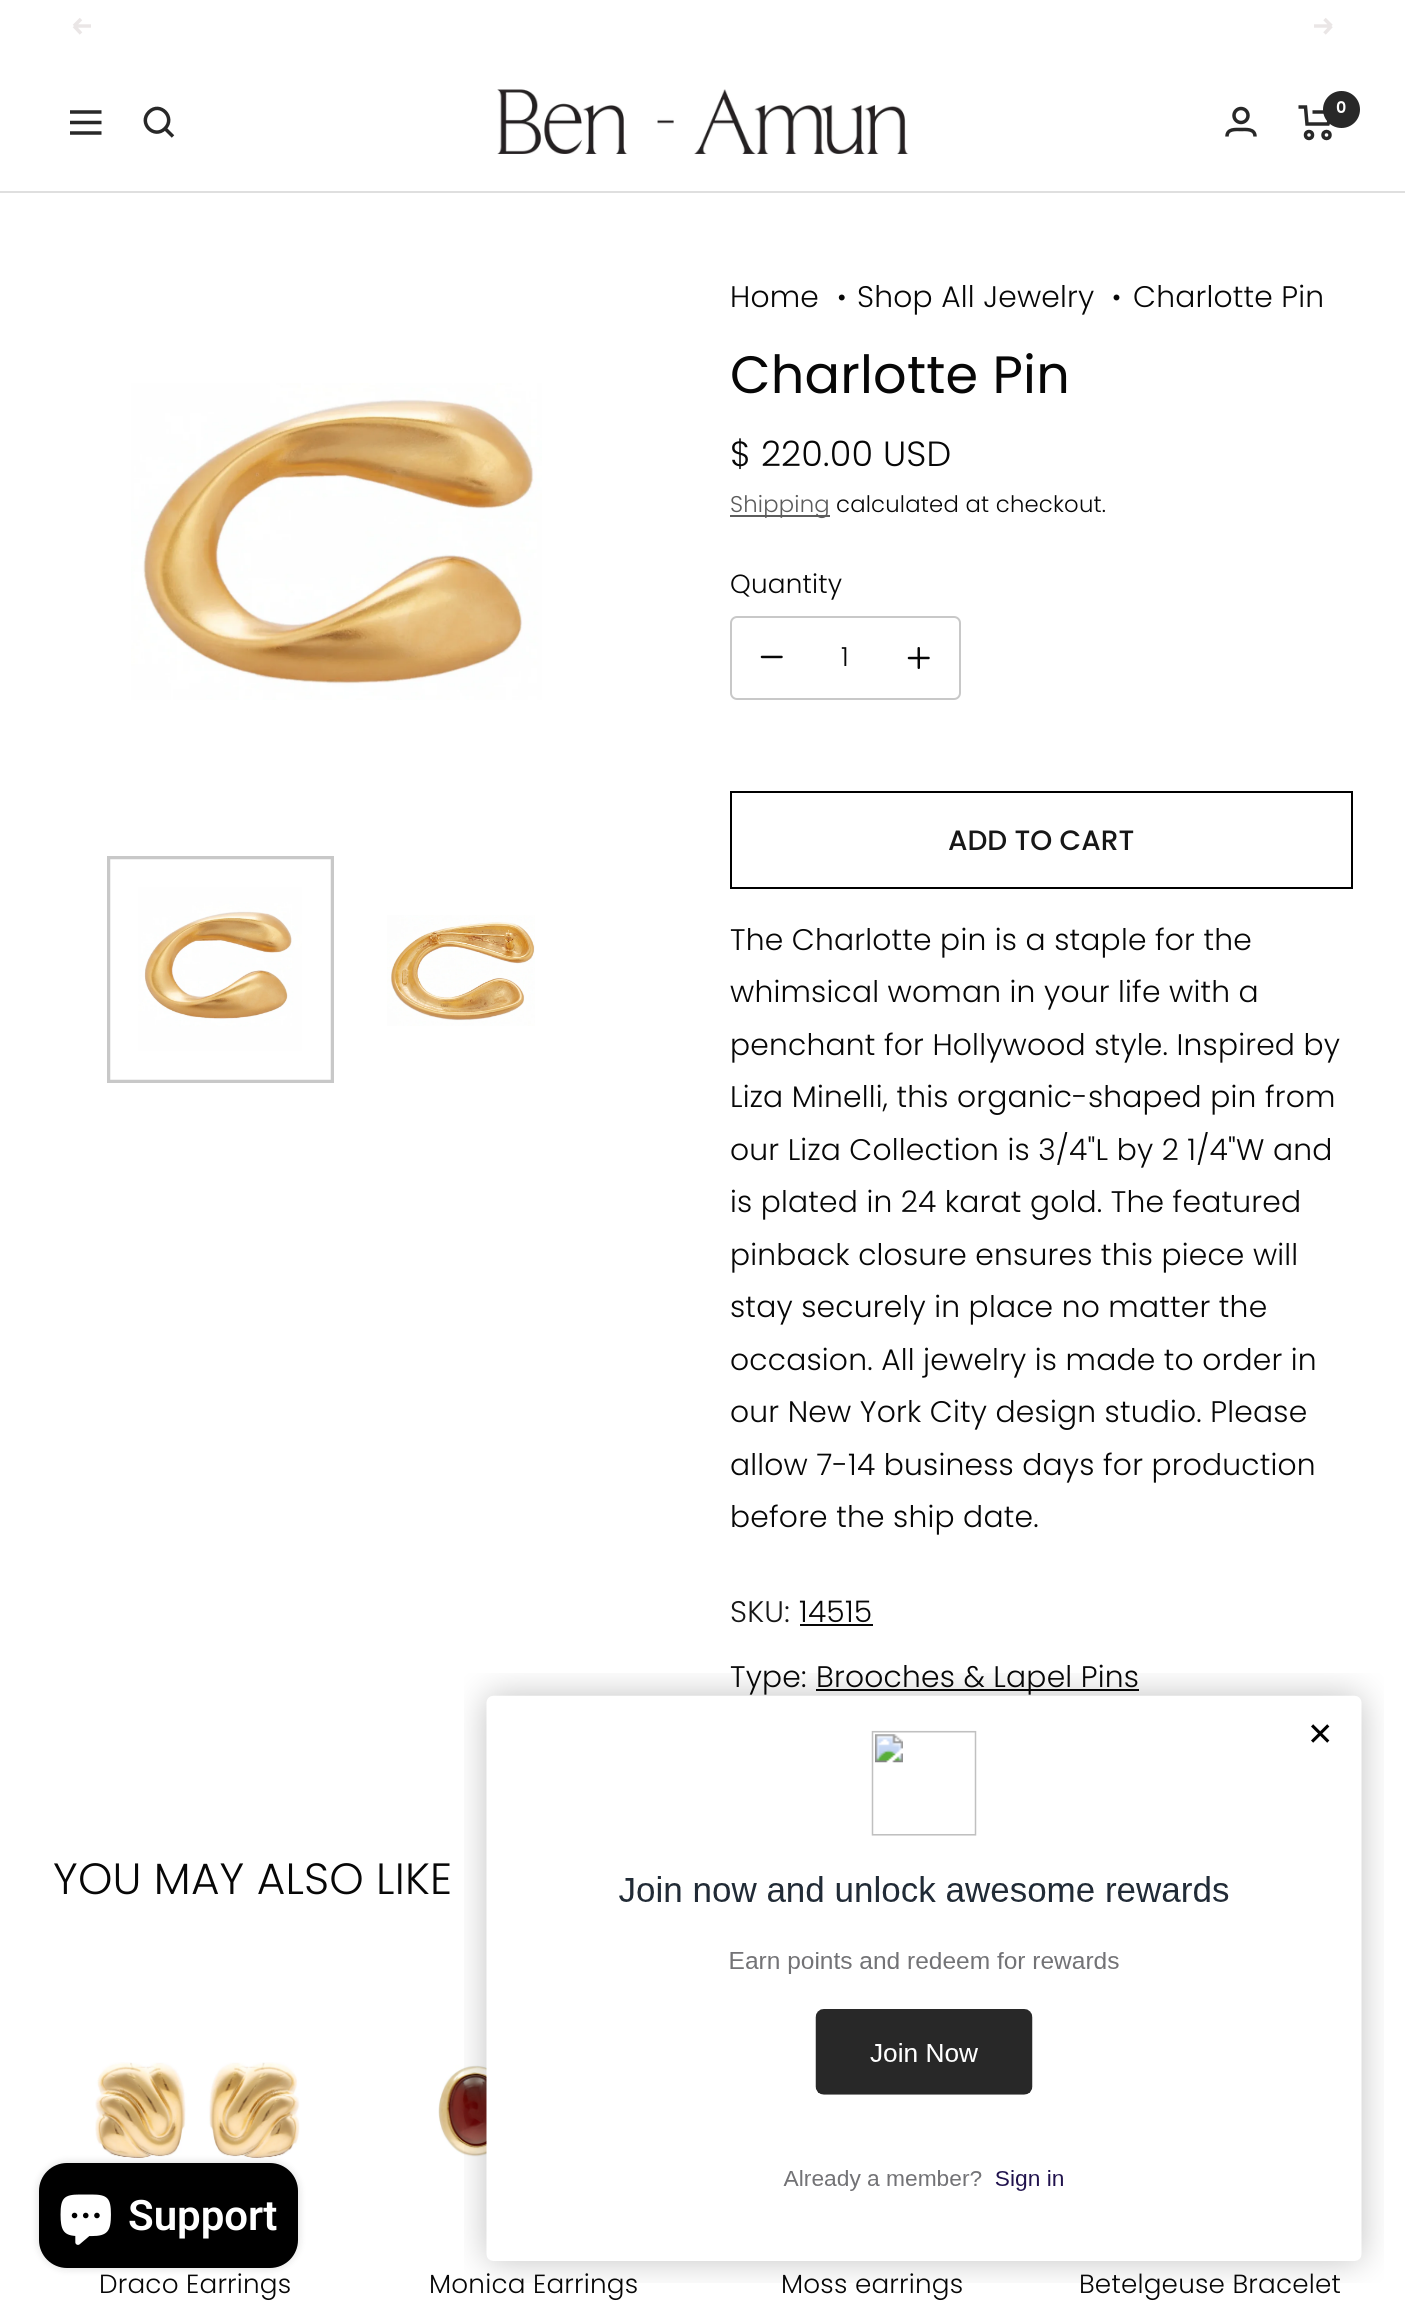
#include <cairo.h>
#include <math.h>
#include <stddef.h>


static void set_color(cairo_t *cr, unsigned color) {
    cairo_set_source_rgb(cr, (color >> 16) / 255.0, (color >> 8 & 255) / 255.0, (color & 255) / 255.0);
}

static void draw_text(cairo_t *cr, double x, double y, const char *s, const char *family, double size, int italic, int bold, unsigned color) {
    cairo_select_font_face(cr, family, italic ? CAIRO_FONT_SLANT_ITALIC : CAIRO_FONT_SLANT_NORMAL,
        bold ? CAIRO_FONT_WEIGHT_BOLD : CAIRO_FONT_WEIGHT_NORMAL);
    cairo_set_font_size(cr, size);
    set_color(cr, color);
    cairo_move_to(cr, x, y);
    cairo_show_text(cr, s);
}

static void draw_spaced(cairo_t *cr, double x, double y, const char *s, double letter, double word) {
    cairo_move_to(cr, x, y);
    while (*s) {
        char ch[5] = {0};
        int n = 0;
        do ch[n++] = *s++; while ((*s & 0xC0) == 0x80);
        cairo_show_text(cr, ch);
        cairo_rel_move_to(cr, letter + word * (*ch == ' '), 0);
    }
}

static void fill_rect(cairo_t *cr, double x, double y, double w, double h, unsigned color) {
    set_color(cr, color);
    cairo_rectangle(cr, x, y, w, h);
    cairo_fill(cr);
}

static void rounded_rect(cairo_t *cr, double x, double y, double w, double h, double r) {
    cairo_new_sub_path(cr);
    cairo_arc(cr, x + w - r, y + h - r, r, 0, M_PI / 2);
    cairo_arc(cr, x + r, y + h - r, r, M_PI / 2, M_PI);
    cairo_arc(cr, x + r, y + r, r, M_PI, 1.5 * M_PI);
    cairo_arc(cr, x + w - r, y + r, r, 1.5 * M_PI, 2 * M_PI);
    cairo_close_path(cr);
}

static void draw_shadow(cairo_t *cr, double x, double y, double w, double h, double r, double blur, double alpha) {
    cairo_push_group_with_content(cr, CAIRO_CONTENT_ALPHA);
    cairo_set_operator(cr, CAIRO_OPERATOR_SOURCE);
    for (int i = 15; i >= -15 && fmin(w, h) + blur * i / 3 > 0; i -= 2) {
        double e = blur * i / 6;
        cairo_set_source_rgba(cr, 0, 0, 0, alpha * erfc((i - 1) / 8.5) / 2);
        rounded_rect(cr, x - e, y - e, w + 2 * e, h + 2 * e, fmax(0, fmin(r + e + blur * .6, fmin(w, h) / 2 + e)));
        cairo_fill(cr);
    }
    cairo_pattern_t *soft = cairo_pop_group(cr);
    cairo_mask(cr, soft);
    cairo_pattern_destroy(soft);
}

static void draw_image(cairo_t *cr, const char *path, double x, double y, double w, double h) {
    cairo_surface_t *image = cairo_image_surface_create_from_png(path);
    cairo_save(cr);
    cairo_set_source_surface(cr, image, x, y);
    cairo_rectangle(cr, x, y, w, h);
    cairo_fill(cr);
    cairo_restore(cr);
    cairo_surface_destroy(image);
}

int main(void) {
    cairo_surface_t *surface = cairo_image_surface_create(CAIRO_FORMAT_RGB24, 1405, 2304);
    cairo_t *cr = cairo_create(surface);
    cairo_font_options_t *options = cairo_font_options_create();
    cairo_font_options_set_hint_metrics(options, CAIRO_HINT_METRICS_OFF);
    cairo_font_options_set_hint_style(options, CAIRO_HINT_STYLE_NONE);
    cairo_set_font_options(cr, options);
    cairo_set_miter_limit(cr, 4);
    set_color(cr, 0xFFFFFF);
    cairo_paint(cr);
    cairo_new_path(cr);
    cairo_move_to(cr, 91, 26);
    cairo_line_to(cr, 74, 26);
    cairo_move_to(cr, 74, 26);
    cairo_line_to(cr, 81, 33.5);
    cairo_move_to(cr, 74, 26);
    cairo_line_to(cr, 81, 19);
    set_color(cr, 0xEAE6E6);
    cairo_set_line_width(cr, 3.5);
    cairo_stroke(cr);
    cairo_new_path(cr);
    cairo_move_to(cr, 1314, 26);
    cairo_line_to(cr, 1331.5, 26);
    cairo_move_to(cr, 1331.5, 26);
    cairo_line_to(cr, 1324.5, 33.5);
    cairo_move_to(cr, 1331.5, 26);
    cairo_line_to(cr, 1324.5, 19);
    cairo_stroke(cr);
    fill_rect(cr, 0, 191, 1405, 2, 0xDFDFDF);
    cairo_new_path(cr);
    cairo_move_to(cr, 70, 112);
    cairo_line_to(cr, 101.5, 112);
    cairo_move_to(cr, 70, 133);
    cairo_line_to(cr, 101.5, 133);
    cairo_close_path(cr);
    cairo_move_to(cr, 70, 122.5);
    cairo_line_to(cr, 101.5, 122.5);
    cairo_close_path(cr);
    set_color(cr, 0x282828);
    cairo_stroke(cr);
    cairo_new_path(cr);
    cairo_move_to(cr, 165, 128.5);
    cairo_curve_to(cr, 176, 117.5, 160, 101, 149, 112);
    cairo_curve_to(cr, 138, 123, 154, 139.5, 165, 128.5);
    cairo_close_path(cr);
    cairo_move_to(cr, 165, 128.5);
    cairo_line_to(cr, 173, 136.5);
    cairo_stroke(cr);
    draw_image(cr, "assets/img1.png", 497, 89, 412, 65);
    cairo_arc(cr, 1241, 115.5, 7, 0, 2 * M_PI);
    cairo_stroke(cr);
    cairo_new_path(cr);
    cairo_move_to(cr, 1227, 136.5);
    cairo_curve_to(cr, 1227, 128.5, 1235.5, 129.5, 1241, 129.5);
    cairo_curve_to(cr, 1246, 129.5, 1255, 128.5, 1255, 136.5);
    cairo_stroke(cr);
    cairo_new_path(cr);
    cairo_move_to(cr, 1298.5, 107);
    cairo_line_to(cr, 1305.5, 107);
    cairo_line_to(cr, 1307, 124);
    cairo_line_to(cr, 1328, 124);
    cairo_line_to(cr, 1332, 112);
    cairo_line_to(cr, 1312.5, 112);
    cairo_stroke(cr);
    cairo_arc(cr, 1309, 135, 3.5, 0, 2 * M_PI);
    cairo_stroke(cr);
    cairo_arc(cr, 1326.5, 135, 3.5, 0, 2 * M_PI);
    cairo_stroke(cr);
    cairo_arc(cr, 1341.5, 109.5, 18.5, 0, 2 * M_PI);
    cairo_fill(cr);
    draw_text(cr, 1336, 113, "0", "Poppins SemiBold", 16, 0, 0, 0xFFFFFF);
    draw_image(cr, "assets/img2.png", 131, 383, 411, 317);
    cairo_rectangle(cr, 109, 858, 223, 223);
    set_color(cr, 0xC8C8C8);
    cairo_set_line_width(cr, 4);
    cairo_stroke(cr);
    draw_image(cr, "assets/img3.png", 110, 859, 221, 221);
    draw_image(cr, "assets/img4.png", 387, 915, 148, 111);
    cairo_select_font_face(cr, "Poppins Light", CAIRO_FONT_SLANT_NORMAL, CAIRO_FONT_WEIGHT_NORMAL);
    cairo_set_font_size(cr, 29.75);
    set_color(cr, 0x070707);
    draw_spaced(cr, 730, 307, "Home", 0.2, 0);
    draw_image(cr, "assets/img5.png", 838, 294, 7, 7);
    draw_spaced(cr, 857, 307, "Shop All Jewelry", 0.2, 0);
    draw_image(cr, "assets/img6.png", 1113, 294, 7, 7);
    draw_spaced(cr, 1133, 307, "Charlotte Pin", 0.2, 0);
    cairo_select_font_face(cr, "Poppins", CAIRO_FONT_SLANT_NORMAL, CAIRO_FONT_WEIGHT_NORMAL);
    cairo_set_font_size(cr, 52.5);
    draw_spaced(cr, 730, 393, "Charlotte Pin", 0.2, 0);
    cairo_select_font_face(cr, "Poppins Light", CAIRO_FONT_SLANT_NORMAL, CAIRO_FONT_WEIGHT_NORMAL);
    cairo_set_font_size(cr, 35);
    draw_spaced(cr, 730, 466, "$ 220.00 USD", 0.2, 0);
    fill_rect(cr, 730, 515, 100, 2, 0x5C5C5C);
    cairo_set_font_size(cr, 22.75);
    draw_spaced(cr, 730, 512, "Shipping", 0.2, 0);
    set_color(cr, 0x070707);
    draw_spaced(cr, 836, 512, "calculated at checkout.", 0.2, 0);
    cairo_set_font_size(cr, 26.25);
    draw_spaced(cr, 730, 593, "Quantity", 0.2, 0);
    rounded_rect(cr, 731, 617, 229, 82, 6);
    set_color(cr, 0xC8C8C8);
    cairo_set_line_width(cr, 2);
    cairo_stroke(cr);
    draw_image(cr, "assets/img7.png", 760, 655, 23, 4);
    set_color(cr, 0x070707);
    draw_spaced(cr, 841, 666, "1", 0.2, 0);
    draw_image(cr, "assets/img8.png", 907, 647, 23, 22);
    cairo_rectangle(cr, 731, 792, 621, 96);
    set_color(cr, 0x000000);
    cairo_stroke(cr);
    draw_text(cr, 948, 850, "ADD TO CART", "Poppins Medium", 28, 0, 0, 0x171717);
    cairo_select_font_face(cr, "Poppins Light", CAIRO_FONT_SLANT_NORMAL, CAIRO_FONT_WEIGHT_NORMAL);
    cairo_set_font_size(cr, 29.75);
    set_color(cr, 0x070707);
    draw_spaced(cr, 730, 950, "The Charlotte pin is a staple for the", 0.2, 0);
    draw_spaced(cr, 730, 1002, "whimsical woman in your life with a", 0.2, 0);
    draw_spaced(cr, 730, 1055, "penchant for Hollywood style. Inspired by", 0.2, 0);
    draw_spaced(cr, 730, 1107, "Liza Minelli, this organic-shaped pin from", 0.2, 0);
    draw_spaced(cr, 730, 1160, "our Liza Collection is 3/4\"L by 2 1/4\"W and", 0.2, 0);
    draw_spaced(cr, 730, 1212, "is plated in 24 karat gold. The featured", 0.2, 0);
    draw_spaced(cr, 730, 1265, "pinback closure ensures this piece will", 0.2, 0);
    draw_spaced(cr, 730, 1317, "stay securely in place no matter the", 0.2, 0);
    draw_spaced(cr, 730, 1370, "occasion. All jewelry is made to order in", 0.2, 0);
    draw_spaced(cr, 730, 1422, "our New York City design studio. Please", 0.2, 0);
    draw_spaced(cr, 730, 1475, "allow 7-14 business days for production", 0.2, 0);
    draw_spaced(cr, 730, 1527, "before the ship date.", 0.2, 0);
    set_color(cr, 0x171717);
    draw_spaced(cr, 730, 1622, "SKU:", 0.2, 0);
    set_color(cr, 0x070707);
    draw_spaced(cr, 799, 1622, "14515", 0.2, 0);
    fill_rect(cr, 800, 1624, 73, 2, 0x070707);
    draw_spaced(cr, 730, 1687, "Type:", 0.2, 0);
    fill_rect(cr, 816, 1689, 323, 2, 0x070707);
    draw_spaced(cr, 816, 1687, "Brooches & Lapel Pins", 0.2, 0);
    cairo_set_font_size(cr, 43.75);
    draw_spaced(cr, 53, 1894, "YOU MAY ALSO LIKE", 0.2, 0);
    draw_image(cr, "assets/img9.png", 95, 2062, 205, 96);
    cairo_set_font_size(cr, 26.25);
    draw_spaced(cr, 99, 2293, "Draco Earrings", 0.2, 0);
    draw_image(cr, "assets/img10.png", 438, 2065, 49, 92);
    draw_spaced(cr, 429, 2293, "Monica Earrings", 0.2, 0);
    draw_spaced(cr, 781, 2293, "Moss earrings", 0.2, 0);
    draw_spaced(cr, 1079, 2293, "Betelgeuse Bracelet", 0.2, 0);
    set_color(cr, 0x000000);
    draw_shadow(cr, 39, 2163, 259, 105, 28, 4.5, 0.15);
    set_color(cr, 0x000000);
    rounded_rect(cr, 39, 2163, 259, 105, 28);
    cairo_fill(cr);
    draw_image(cr, "assets/img11.png", 60, 2194, 51, 51);
    draw_text(cr, 128, 2230, "Support", "Roboto SemiBold", 42, 0, 0, 0xFFFFFF);
    draw_image(cr, "assets/img12.png", 464, 1673, 920, 610);
    cairo_surface_write_to_png(surface, "output.png");
    cairo_font_options_destroy(options);
    cairo_destroy(cr);
    cairo_surface_destroy(surface);
    return 0;
}
